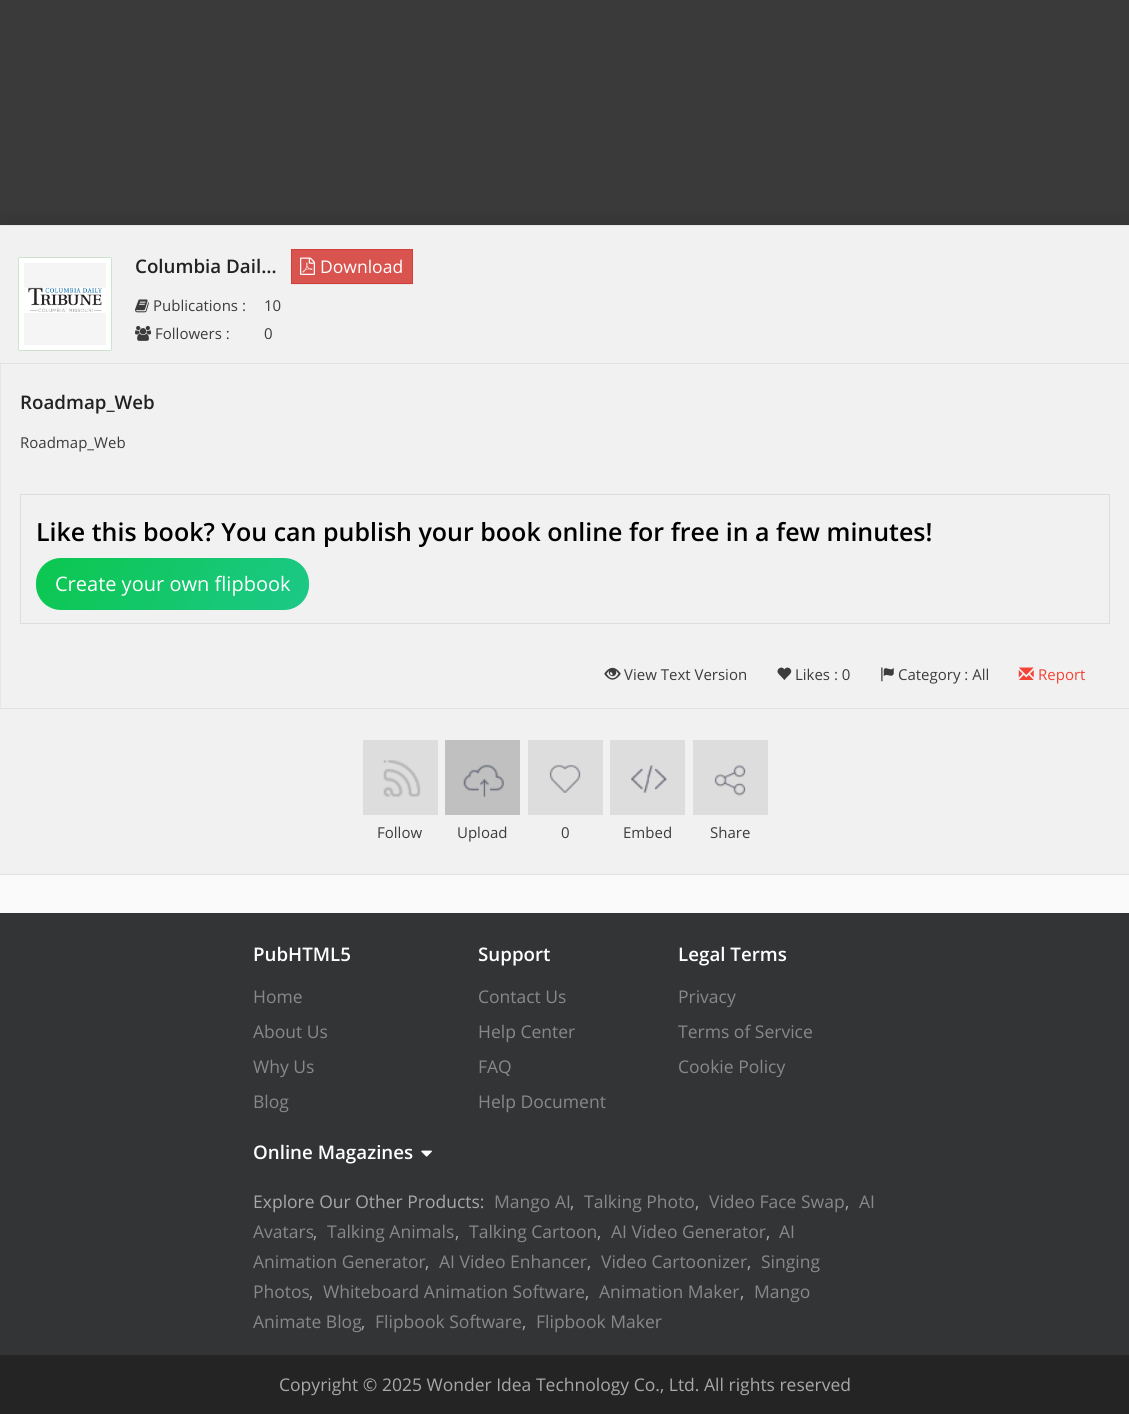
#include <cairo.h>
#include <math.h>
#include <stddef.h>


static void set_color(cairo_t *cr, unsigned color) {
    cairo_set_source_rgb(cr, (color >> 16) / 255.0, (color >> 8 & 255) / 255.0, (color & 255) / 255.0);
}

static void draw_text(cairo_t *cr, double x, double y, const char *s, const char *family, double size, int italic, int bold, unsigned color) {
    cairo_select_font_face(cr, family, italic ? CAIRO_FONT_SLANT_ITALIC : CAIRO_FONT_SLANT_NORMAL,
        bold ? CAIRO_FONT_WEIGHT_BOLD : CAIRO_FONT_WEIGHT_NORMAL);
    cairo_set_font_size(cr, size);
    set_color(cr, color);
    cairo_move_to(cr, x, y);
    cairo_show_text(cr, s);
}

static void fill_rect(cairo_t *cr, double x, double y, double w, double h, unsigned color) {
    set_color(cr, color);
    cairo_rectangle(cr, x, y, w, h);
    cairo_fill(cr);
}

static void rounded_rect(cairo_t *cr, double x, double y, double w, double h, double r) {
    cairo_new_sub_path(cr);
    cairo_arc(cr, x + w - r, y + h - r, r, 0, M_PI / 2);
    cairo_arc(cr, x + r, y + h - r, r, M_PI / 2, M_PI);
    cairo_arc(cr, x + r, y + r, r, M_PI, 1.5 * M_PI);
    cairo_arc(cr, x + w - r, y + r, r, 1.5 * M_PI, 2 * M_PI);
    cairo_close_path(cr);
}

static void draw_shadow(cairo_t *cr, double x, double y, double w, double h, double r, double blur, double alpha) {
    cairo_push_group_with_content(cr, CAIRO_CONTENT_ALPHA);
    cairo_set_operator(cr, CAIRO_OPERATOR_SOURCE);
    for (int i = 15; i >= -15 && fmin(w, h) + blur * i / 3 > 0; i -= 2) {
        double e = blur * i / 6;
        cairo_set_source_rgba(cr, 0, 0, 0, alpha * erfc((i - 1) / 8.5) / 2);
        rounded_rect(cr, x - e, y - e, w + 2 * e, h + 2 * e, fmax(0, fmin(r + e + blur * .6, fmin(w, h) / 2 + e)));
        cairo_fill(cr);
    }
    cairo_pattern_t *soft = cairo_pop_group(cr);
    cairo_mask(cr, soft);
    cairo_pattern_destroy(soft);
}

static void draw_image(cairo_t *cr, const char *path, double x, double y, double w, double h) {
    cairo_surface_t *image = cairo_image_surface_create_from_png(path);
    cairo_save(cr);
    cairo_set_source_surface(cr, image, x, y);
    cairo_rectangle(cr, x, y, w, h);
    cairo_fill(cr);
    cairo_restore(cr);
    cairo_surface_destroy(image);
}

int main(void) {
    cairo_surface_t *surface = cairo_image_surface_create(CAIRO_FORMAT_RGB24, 1129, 1414);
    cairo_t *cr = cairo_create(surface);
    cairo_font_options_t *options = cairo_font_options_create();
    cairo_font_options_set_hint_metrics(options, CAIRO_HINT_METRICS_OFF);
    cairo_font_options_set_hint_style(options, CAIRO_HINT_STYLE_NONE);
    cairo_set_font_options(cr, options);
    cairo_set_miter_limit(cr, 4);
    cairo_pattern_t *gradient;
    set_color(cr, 0xFFFFFF);
    cairo_paint(cr);
    draw_image(cr, "assets/img1.png", 0, 0, 1129, 225);
    fill_rect(cr, 0, 875, 1129, 38, 0xFAFAFA);
    fill_rect(cr, 0, 226, 1129, 648, 0xF1F1F1);
    fill_rect(cr, 0, 225, 1129, 1, 0xE6E6E6);
    fill_rect(cr, 0, 363, 1129, 1, 0xE1E1E1);
    set_color(cr, 0x5CB85C);
    draw_shadow(cr, 19, 258, 92, 92, 0, 0.5, 1);
    set_color(cr, 0xF5F5F5);
    cairo_rectangle(cr, 21.5, 260.5, 87, 87);
    cairo_fill_preserve(cr);
    set_color(cr, 0xFFFFFF);
    cairo_set_line_width(cr, 5);
    cairo_stroke(cr);
    draw_image(cr, "assets/img2.png", 24, 287, 82, 26);
    draw_text(cr, 135, 273, "Columbia Dail…", "Open Sans SemiBold", 18.75, 0, 0, 0x222222);
    set_color(cr, 0xE5E5E5);
    cairo_new_path(cr);
    cairo_move_to(cr, 291, 250);
    cairo_line_to(cr, 291, 285);
    cairo_line_to(cr, 413, 285);
    cairo_line_to(cr, 413, 250);
    cairo_line_to(cr, 412, 250);
    cairo_line_to(cr, 412, 284);
    cairo_line_to(cr, 291, 284);
    cairo_close_path(cr);
    cairo_fill(cr);
    set_color(cr, 0xD9534F);
    cairo_rectangle(cr, 291.5, 249.5, 121, 34);
    cairo_fill_preserve(cr);
    set_color(cr, 0xD43F3A);
    cairo_set_line_width(cr, 1);
    cairo_stroke(cr);
    draw_image(cr, "assets/img3.png", 300, 257, 15, 18);
    draw_text(cr, 320, 273, "Download", "Open Sans", 17.5, 0, 0, 0xFFFFFF);
    draw_image(cr, "assets/img4.png", 135, 299, 14, 14);
    draw_text(cr, 153, 311, "Publications :", "Open Sans", 15, 0, 0, 0x3C3C3C);
    draw_text(cr, 264, 311, "10", "Open Sans", 15, 0, 0, 0x3C3C3C);
    draw_image(cr, "assets/img5.png", 135, 325, 17, 16);
    draw_text(cr, 155, 339, "Followers :", "Open Sans", 15, 0, 0, 0x3C3C3C);
    draw_text(cr, 264, 339, "0", "Open Sans", 15, 0, 0, 0x3C3C3C);
    fill_rect(cr, 0, 708, 1129, 1, 0xE1E1E1);
    fill_rect(cr, 0, 364, 1, 345, 0xE6E6E6);
    draw_text(cr, 20, 409, "Roadmap_Web", "Open Sans SemiBold", 18.75, 0, 0, 0x222222);
    draw_text(cr, 20, 448, "Roadmap_Web", "Open Sans", 15, 0, 0, 0x3C3C3C);
    cairo_rectangle(cr, 20.5, 494.5, 1089, 129);
    set_color(cr, 0xDDDDDD);
    cairo_stroke(cr);
    draw_text(cr, 36, 541, "Like this book? You can publish your book online for free in a few minutes!", "Open Sans SemiBold", 25, 0, 0, 0x000000);
    gradient = cairo_pattern_create_linear(69, 511, 276, 656);
    cairo_pattern_add_color_stop_rgba(gradient, 0, 0.043, 0.78, 0.306, 1);
    cairo_pattern_add_color_stop_rgba(gradient, 1, 0.11, 0.784, 0.533, 1);
    cairo_set_source(cr, gradient);
    cairo_pattern_destroy(gradient);
    rounded_rect(cr, 36, 558, 273, 52, 25);
    cairo_fill(cr);
    draw_text(cr, 55, 591, "Create your own flipbook", "Open Sans", 20, 0, 0, 0xFFFFFF);
    draw_image(cr, "assets/img6.png", 604, 667, 17, 13);
    draw_text(cr, 624, 680, "View Text Version", "Open Sans", 15, 0, 0, 0x3C3C3C);
    draw_image(cr, "assets/img7.png", 777, 667, 15, 13);
    draw_text(cr, 795, 680, "Likes : 0", "Open Sans", 15, 0, 0, 0x3C3C3C);
    draw_image(cr, "assets/img8.png", 881, 667, 13, 15);
    draw_text(cr, 898, 680, "Category : All", "Open Sans", 15, 0, 0, 0x3C3C3C);
    draw_image(cr, "assets/img9.png", 1018, 667, 16, 13);
    draw_text(cr, 1038, 680, "Report", "Open Sans", 15, 0, 0, 0xF44336);
    fill_rect(cr, 0, 874, 1129, 1, 0xE1E1E1);
    fill_rect(cr, 363, 740, 75, 75, 0xDDDDDD);
    draw_image(cr, "assets/img10.png", 383, 760, 38, 37);
    draw_text(cr, 377, 838, "Follow", "Open Sans", 15, 0, 0, 0x3C3C3C);
    fill_rect(cr, 445, 740, 75, 75, 0xC0C0C0);
    draw_image(cr, "assets/img11.png", 463, 764, 41, 34);
    draw_text(cr, 457, 838, "Upload", "Open Sans", 15, 0, 0, 0x3C3C3C);
    fill_rect(cr, 528, 740, 75, 75, 0xDDDDDD);
    draw_image(cr, "assets/img12.png", 549, 765, 32, 28);
    draw_text(cr, 561, 838, "0", "Open Sans", 15, 0, 0, 0x3C3C3C);
    fill_rect(cr, 610, 740, 75, 75, 0xDDDDDD);
    draw_image(cr, "assets/img13.png", 631, 765, 36, 28);
    draw_text(cr, 623, 838, "Embed", "Open Sans", 15, 0, 0, 0x3C3C3C);
    fill_rect(cr, 693, 740, 75, 75, 0xDDDDDD);
    draw_image(cr, "assets/img14.png", 714, 765, 32, 31);
    draw_text(cr, 710, 838, "Share", "Open Sans", 15, 0, 0, 0x3C3C3C);
    fill_rect(cr, 0, 913, 1129, 442, 0x323436);
    draw_text(cr, 253, 961, "PubHTML5", "Open Sans SemiBold", 18.75, 0, 0, 0xFFFFFF);
    draw_text(cr, 253, 1003, "Home", "Open Sans", 17.5, 0, 0, 0x888888);
    draw_text(cr, 253, 1038, "About Us", "Open Sans", 17.5, 0, 0, 0x888888);
    draw_text(cr, 253, 1073, "Why Us", "Open Sans", 17.5, 0, 0, 0x888888);
    draw_text(cr, 253, 1108, "Blog", "Open Sans", 17.5, 0, 0, 0x888888);
    draw_text(cr, 478, 961, "Support", "Open Sans SemiBold", 18.75, 0, 0, 0xFFFFFF);
    draw_text(cr, 478, 1003, "Contact Us", "Open Sans", 17.5, 0, 0, 0x888888);
    draw_text(cr, 478, 1038, "Help Center", "Open Sans", 17.5, 0, 0, 0x888888);
    draw_text(cr, 478, 1073, "FAQ", "Open Sans", 17.5, 0, 0, 0x888888);
    draw_text(cr, 478, 1108, "Help Document", "Open Sans", 17.5, 0, 0, 0x888888);
    draw_text(cr, 678, 961, "Legal Terms", "Open Sans SemiBold", 18.75, 0, 0, 0xFFFFFF);
    draw_text(cr, 678, 1003, "Privacy", "Open Sans", 17.5, 0, 0, 0x888888);
    draw_text(cr, 678, 1038, "Terms of Service", "Open Sans", 17.5, 0, 0, 0x888888);
    draw_text(cr, 678, 1073, "Cookie Policy", "Open Sans", 17.5, 0, 0, 0x888888);
    draw_text(cr, 253, 1159, "Online Magazines", "Open Sans SemiBold", 18.75, 0, 0, 0xFFFFFF);
    draw_image(cr, "assets/img15.png", 421, 1150, 11, 7);
    draw_text(cr, 253, 1208, "Explore Our Other Products:", "Open Sans", 17.5, 0, 0, 0xA8A8A8);
    draw_text(cr, 494, 1208, "Mango AI", "Open Sans", 17.5, 0, 0, 0x888888);
    draw_text(cr, 570, 1208, ",", "Open Sans", 17.5, 0, 0, 0xA8A8A8);
    draw_text(cr, 584, 1208, "Talking Photo", "Open Sans", 17.5, 0, 0, 0x888888);
    draw_text(cr, 695, 1208, ",", "Open Sans", 17.5, 0, 0, 0xA8A8A8);
    draw_text(cr, 709, 1208, "Video Face Swap", "Open Sans", 17.5, 0, 0, 0x888888);
    draw_text(cr, 845, 1208, ",", "Open Sans", 17.5, 0, 0, 0xA8A8A8);
    draw_text(cr, 859, 1208, "AI", "Open Sans", 17.5, 0, 0, 0x888888);
    draw_text(cr, 253, 1238, "Avatars", "Open Sans", 17.5, 0, 0, 0x888888);
    draw_text(cr, 313, 1238, ",", "Open Sans", 17.5, 0, 0, 0xA8A8A8);
    draw_text(cr, 327, 1238, "Talking Animals", "Open Sans", 17.5, 0, 0, 0x888888);
    draw_text(cr, 455, 1238, ",", "Open Sans", 17.5, 0, 0, 0xA8A8A8);
    draw_text(cr, 469, 1238, "Talking Cartoon", "Open Sans", 17.5, 0, 0, 0x888888);
    draw_text(cr, 597, 1238, ",", "Open Sans", 17.5, 0, 0, 0xA8A8A8);
    draw_text(cr, 611, 1238, "AI Video Generator", "Open Sans", 17.5, 0, 0, 0x888888);
    draw_text(cr, 766, 1238, ",", "Open Sans", 17.5, 0, 0, 0xA8A8A8);
    draw_text(cr, 779, 1238, "AI", "Open Sans", 17.5, 0, 0, 0x888888);
    draw_text(cr, 253, 1268, "Animation Generator", "Open Sans", 17.5, 0, 0, 0x888888);
    draw_text(cr, 425, 1268, ",", "Open Sans", 17.5, 0, 0, 0xA8A8A8);
    draw_text(cr, 439, 1268, "AI Video Enhancer", "Open Sans", 17.5, 0, 0, 0x888888);
    draw_text(cr, 587, 1268, ",", "Open Sans", 17.5, 0, 0, 0xA8A8A8);
    draw_text(cr, 601, 1268, "Video Cartoonizer", "Open Sans", 17.5, 0, 0, 0x888888);
    draw_text(cr, 747, 1268, ",", "Open Sans", 17.5, 0, 0, 0xA8A8A8);
    draw_text(cr, 761, 1268, "Singing", "Open Sans", 17.5, 0, 0, 0x888888);
    draw_text(cr, 253, 1298, "Photos", "Open Sans", 17.5, 0, 0, 0x888888);
    draw_text(cr, 309, 1298, ",", "Open Sans", 17.5, 0, 0, 0xA8A8A8);
    draw_text(cr, 323, 1298, "Whiteboard Animation Software", "Open Sans", 17.5, 0, 0, 0x888888);
    draw_text(cr, 585, 1298, ",", "Open Sans", 17.5, 0, 0, 0xA8A8A8);
    draw_text(cr, 599, 1298, "Animation Maker", "Open Sans", 17.5, 0, 0, 0x888888);
    draw_text(cr, 740, 1298, ",", "Open Sans", 17.5, 0, 0, 0xA8A8A8);
    draw_text(cr, 754, 1298, "Mango", "Open Sans", 17.5, 0, 0, 0x888888);
    draw_text(cr, 253, 1328, "Animate Blog", "Open Sans", 17.5, 0, 0, 0x888888);
    draw_text(cr, 361, 1328, ",", "Open Sans", 17.5, 0, 0, 0xA8A8A8);
    draw_text(cr, 375, 1328, "Flipbook Software", "Open Sans", 17.5, 0, 0, 0x888888);
    draw_text(cr, 522, 1328, ",", "Open Sans", 17.5, 0, 0, 0xA8A8A8);
    draw_text(cr, 536, 1328, "Flipbook Maker", "Open Sans", 17.5, 0, 0, 0x888888);
    fill_rect(cr, 0, 1355, 1129, 59, 0x242424);
    draw_text(cr, 279, 1391, "Copyright © 2025 Wonder Idea Technology Co., Ltd. All rights reserved", "Open Sans", 17.5, 0, 0, 0xA8A8A8);
    cairo_surface_write_to_png(surface, "output.png");
    cairo_font_options_destroy(options);
    cairo_destroy(cr);
    cairo_surface_destroy(surface);
    return 0;
}
